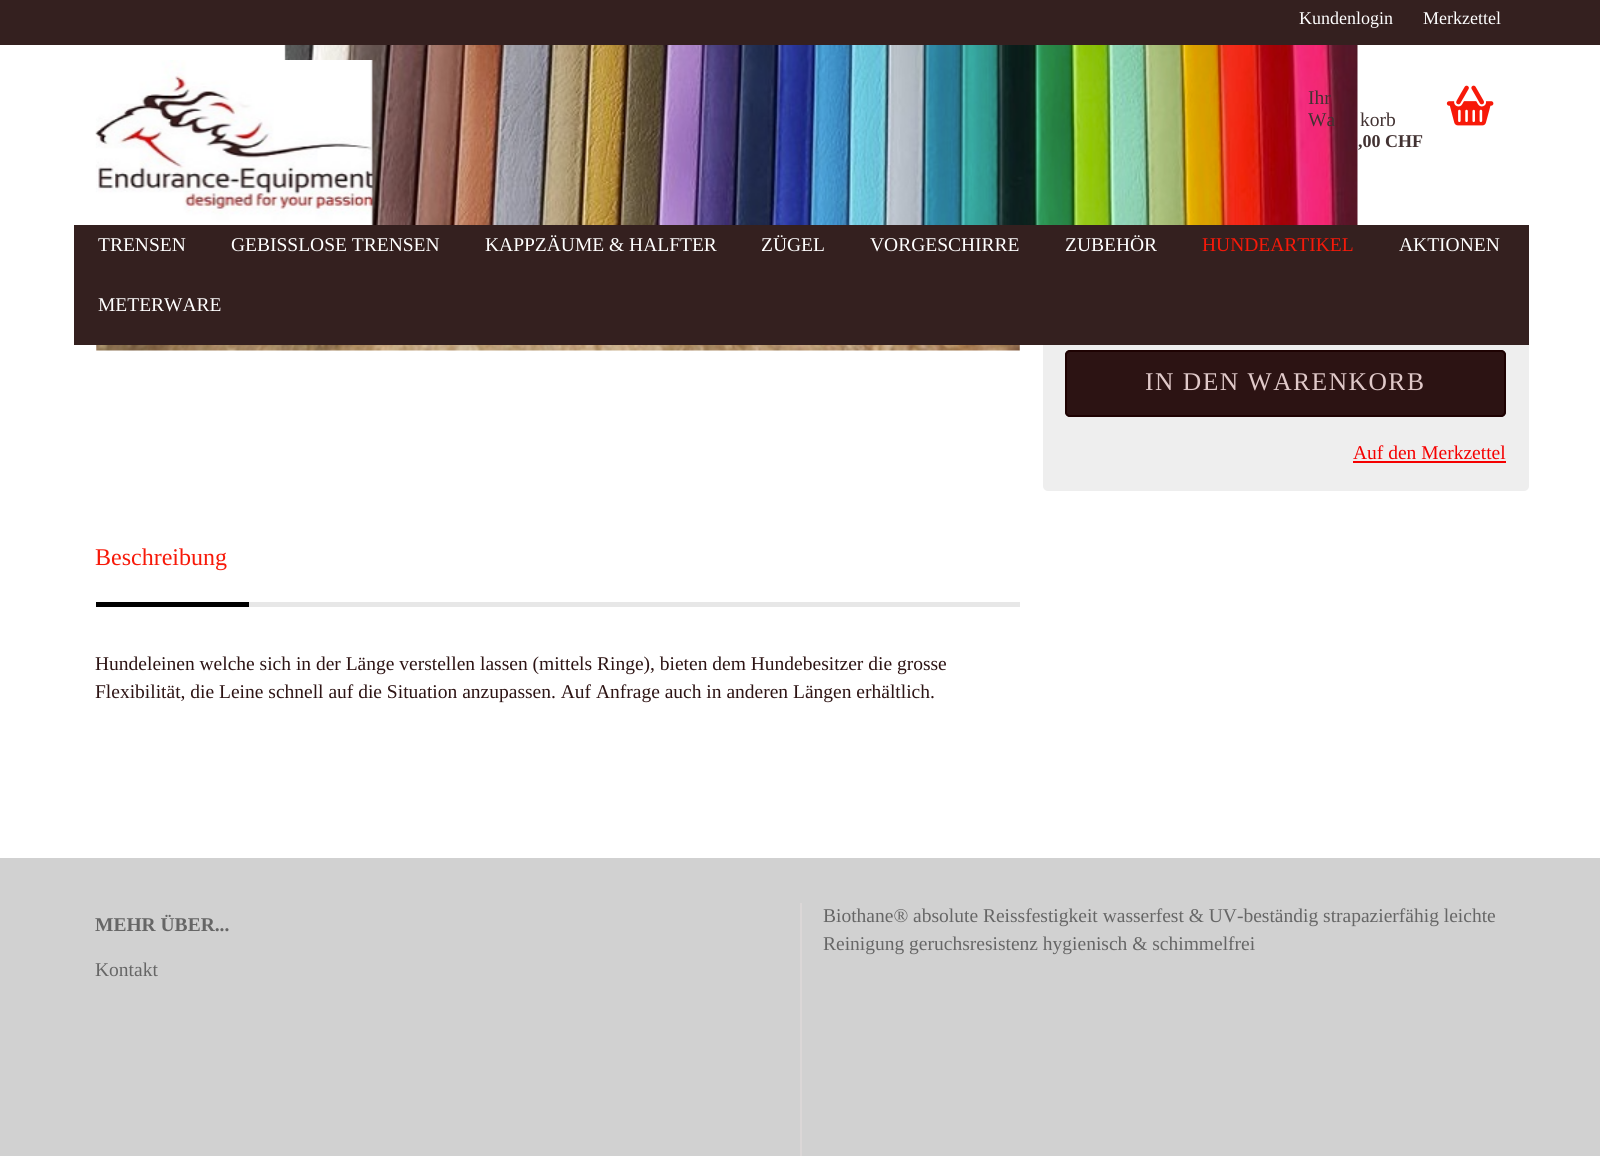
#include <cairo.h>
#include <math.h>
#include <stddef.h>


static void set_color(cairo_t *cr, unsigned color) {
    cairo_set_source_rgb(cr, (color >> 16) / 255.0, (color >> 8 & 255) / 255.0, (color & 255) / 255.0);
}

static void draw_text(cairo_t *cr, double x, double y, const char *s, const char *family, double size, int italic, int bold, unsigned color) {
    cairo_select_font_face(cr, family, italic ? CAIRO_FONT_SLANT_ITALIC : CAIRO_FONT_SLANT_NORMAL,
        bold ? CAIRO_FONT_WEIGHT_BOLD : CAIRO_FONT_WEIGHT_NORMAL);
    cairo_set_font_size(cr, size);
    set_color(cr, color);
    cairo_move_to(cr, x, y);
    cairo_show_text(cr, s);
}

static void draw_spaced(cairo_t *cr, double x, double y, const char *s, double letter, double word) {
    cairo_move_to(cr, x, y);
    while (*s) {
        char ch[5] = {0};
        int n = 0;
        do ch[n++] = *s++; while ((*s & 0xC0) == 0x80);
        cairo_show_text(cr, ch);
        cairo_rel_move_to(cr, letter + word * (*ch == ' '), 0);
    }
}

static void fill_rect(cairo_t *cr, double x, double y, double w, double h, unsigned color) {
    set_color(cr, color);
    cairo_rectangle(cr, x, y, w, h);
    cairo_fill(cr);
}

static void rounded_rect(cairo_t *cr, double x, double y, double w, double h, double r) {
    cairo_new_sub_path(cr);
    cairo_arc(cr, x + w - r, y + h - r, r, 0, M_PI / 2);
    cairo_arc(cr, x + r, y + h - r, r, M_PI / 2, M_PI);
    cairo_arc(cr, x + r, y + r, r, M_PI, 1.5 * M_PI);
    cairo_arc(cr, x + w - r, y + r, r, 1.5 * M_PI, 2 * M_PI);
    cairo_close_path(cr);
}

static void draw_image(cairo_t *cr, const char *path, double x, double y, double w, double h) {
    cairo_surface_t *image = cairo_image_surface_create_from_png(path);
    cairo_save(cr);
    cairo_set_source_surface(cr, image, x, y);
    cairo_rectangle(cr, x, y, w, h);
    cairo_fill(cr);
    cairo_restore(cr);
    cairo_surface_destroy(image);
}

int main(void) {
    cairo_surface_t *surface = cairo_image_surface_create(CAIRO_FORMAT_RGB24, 1600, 1156);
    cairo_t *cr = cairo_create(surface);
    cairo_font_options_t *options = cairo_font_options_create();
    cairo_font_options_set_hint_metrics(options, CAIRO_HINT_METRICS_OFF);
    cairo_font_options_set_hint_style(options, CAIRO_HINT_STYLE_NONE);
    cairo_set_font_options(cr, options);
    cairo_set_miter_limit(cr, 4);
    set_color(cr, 0xFFFFFF);
    cairo_paint(cr);
    set_color(cr, 0xEEEEEE);
    rounded_rect(cr, 1043, -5, 486, 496, 5);
    cairo_fill(cr);
    fill_rect(cr, 1043, 45, 486, 248, 0xFFFFFF);
    draw_image(cr, "assets/img1.png", 284, 45, 1074, 180);
    fill_rect(cr, 0, 0, 1600, 45, 0x34201F);
    draw_text(cr, 1299, 24, "Kundenlogin", "Liberation Serif", 18, 0, 0, 0xFFFFFF);
    draw_text(cr, 1423, 24, "Merkzettel", "Liberation Serif", 18, 0, 0, 0xFFFFFF);
    draw_image(cr, "assets/img2.png", 95, 60, 278, 165);
    draw_text(cr, 1308, 104, "Ihr", "Liberation Serif", 19.5, 0, 0, 0x423232);
    draw_text(cr, 1308, 126, "Wa", "Liberation Serif", 19.5, 0, 0, 0x423232);
    draw_text(cr, 1360, 126, "korb", "Liberation Serif", 19.5, 0, 0, 0x423232);
    draw_text(cr, 1358, 147, ",00 CHF", "Liberation Serif", 18, 0, 1, 0x423232);
    draw_image(cr, "assets/img3.png", 1446, 85, 48, 41);
    fill_rect(cr, 74, 225, 1455, 120, 0x34201F);
    draw_text(cr, 98, 251, "TRENSEN", "Liberation Serif", 19.5, 0, 0, 0xFFFFFF);
    draw_text(cr, 231, 251, "GEBISSLOSE TRENSEN", "Liberation Serif", 19.5, 0, 0, 0xFFFFFF);
    draw_text(cr, 485, 251, "KAPPZÄUME & HALFTER", "Liberation Serif", 19.5, 0, 0, 0xFFFFFF);
    draw_text(cr, 761, 251, "ZÜGEL", "Liberation Serif", 19.5, 0, 0, 0xFFFFFF);
    draw_text(cr, 870, 251, "VORGESCHIRRE", "Liberation Serif", 19.5, 0, 0, 0xFFFFFF);
    draw_text(cr, 1065, 251, "ZUBEHÖR", "Liberation Serif", 19.5, 0, 0, 0xFFFFFF);
    draw_text(cr, 1202, 251, "HUNDEARTIKEL", "Liberation Serif", 19.5, 0, 0, 0xF71909);
    draw_text(cr, 1399, 251, "AKTIONEN", "Liberation Serif", 19.5, 0, 0, 0xFFFFFF);
    draw_text(cr, 98, 311, "METERWARE", "Liberation Serif", 19.5, 0, 0, 0xFFFFFF);
    draw_image(cr, "assets/img4.png", 96, 345, 924, 6);
    set_color(cr, 0x2C1313);
    rounded_rect(cr, 1065, 350, 441, 67, 5);
    cairo_fill(cr);
    rounded_rect(cr, 1066, 351, 439, 65, 4);
    cairo_set_source_rgba(cr, 0.114, 0.008, 0.008, 0.93);
    cairo_stroke(cr);
    cairo_set_font_size(cr, 25.5);
    set_color(cr, 0xE0C9C9);
    draw_spaced(cr, 1145, 390, "IN DEN WARENKORB", 1.5, 0);
    draw_text(cr, 1353, 459, "Auf den Merkzettel", "Liberation Serif", 19.5, 0, 0, 0xF50000);
    fill_rect(cr, 1353, 461, 153, 2, 0xF50000);
    fill_rect(cr, 249, 602, 771, 5, 0xE7E7E7);
    fill_rect(cr, 96, 602, 153, 5, 0x000000);
    draw_text(cr, 95, 565, "Beschreibung", "Liberation Serif", 24, 0, 0, 0xF71909);
    draw_text(cr, 95, 670, "Hundeleinen welche sich in der Länge verstellen lassen (mittels Ringe), bieten dem Hundebesitzer die grosse", "Liberation Serif", 19.5, 0, 0, 0x2D1414);
    draw_text(cr, 95, 698, "Flexibilität, die Leine schnell auf die Situation anzupassen. Auf Anfrage auch in anderen Längen erhältlich.", "Liberation Serif", 19.5, 0, 0, 0x2D1414);
    fill_rect(cr, 0, 858, 1600, 298, 0xD1D1D1);
    fill_rect(cr, 800, 903, 2, 253, 0xDBD7D7);
    draw_text(cr, 95, 931, "MEHR ÜBER...", "Liberation Serif", 19.5, 0, 1, 0x666666);
    draw_text(cr, 95, 976, "Kontakt", "Liberation Serif", 19.5, 0, 0, 0x666666);
    draw_text(cr, 823, 922, "Biothane® absolute Reissfestigkeit wasserfest & UV-beständig strapazierfähig leichte", "Liberation Serif", 19.5, 0, 0, 0x666666);
    draw_text(cr, 823, 950, "Reinigung geruchsresistenz hygienisch & schimmelfrei", "Liberation Serif", 19.5, 0, 0, 0x666666);
    cairo_surface_write_to_png(surface, "output.png");
    cairo_font_options_destroy(options);
    cairo_destroy(cr);
    cairo_surface_destroy(surface);
    return 0;
}
